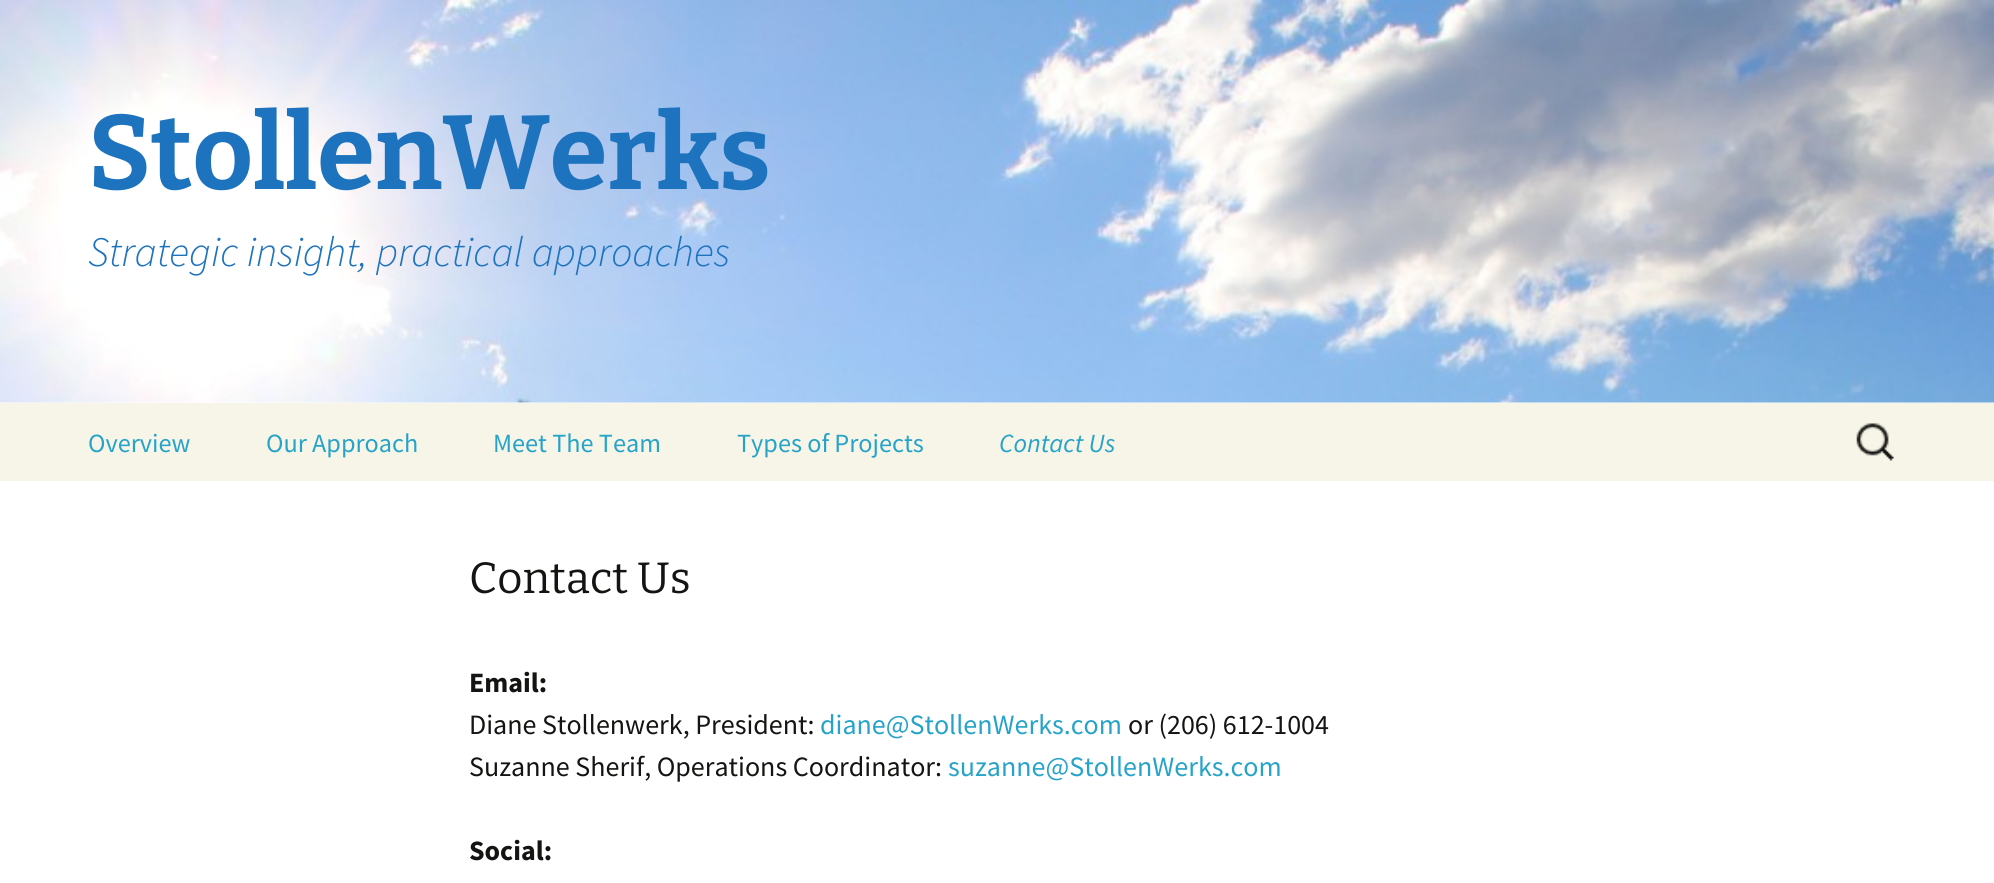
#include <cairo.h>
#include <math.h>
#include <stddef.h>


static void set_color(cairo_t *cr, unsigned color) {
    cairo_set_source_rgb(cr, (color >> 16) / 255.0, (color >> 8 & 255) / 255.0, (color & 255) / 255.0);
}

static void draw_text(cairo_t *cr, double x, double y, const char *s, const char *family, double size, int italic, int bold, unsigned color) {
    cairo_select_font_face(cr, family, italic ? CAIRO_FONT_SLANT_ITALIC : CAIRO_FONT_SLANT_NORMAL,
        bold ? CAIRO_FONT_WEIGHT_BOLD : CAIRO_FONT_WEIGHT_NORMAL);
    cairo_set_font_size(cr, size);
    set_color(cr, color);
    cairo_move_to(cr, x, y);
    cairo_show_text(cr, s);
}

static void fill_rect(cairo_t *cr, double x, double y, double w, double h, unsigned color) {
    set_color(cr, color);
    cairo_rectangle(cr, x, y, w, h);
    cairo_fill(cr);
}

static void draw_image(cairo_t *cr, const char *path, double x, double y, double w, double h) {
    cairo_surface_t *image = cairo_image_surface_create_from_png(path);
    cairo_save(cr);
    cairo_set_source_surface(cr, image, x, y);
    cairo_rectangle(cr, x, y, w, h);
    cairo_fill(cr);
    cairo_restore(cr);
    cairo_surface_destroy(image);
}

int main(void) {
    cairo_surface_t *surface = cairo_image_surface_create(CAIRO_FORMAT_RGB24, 1994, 883);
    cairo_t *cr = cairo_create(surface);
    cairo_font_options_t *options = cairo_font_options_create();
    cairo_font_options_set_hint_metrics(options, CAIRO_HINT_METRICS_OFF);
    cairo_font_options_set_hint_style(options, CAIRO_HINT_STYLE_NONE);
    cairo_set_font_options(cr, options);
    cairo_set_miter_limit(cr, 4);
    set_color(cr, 0xFFFFFF);
    cairo_paint(cr);
    draw_image(cr, "assets/img1.png", 0, 0, 1994, 403);
    draw_text(cr, 88, 189, "StollenWerks", "Bitter Thin", 105, 0, 0, 0x1E73BE);
    draw_text(cr, 88, 266, "Strategic insight, practical approaches", "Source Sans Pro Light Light", 42, 1, 0, 0x1E73BE);
    fill_rect(cr, 0, 403, 1994, 78, 0xF7F5E7);
    draw_text(cr, 88, 452, "Overview", "Source Sans Pro", 26.25, 0, 0, 0x26A3C9);
    draw_text(cr, 266, 452, "Our Approach", "Source Sans Pro", 26.25, 0, 0, 0x26A3C9);
    draw_text(cr, 493, 452, "Meet The Team", "Source Sans Pro", 26.25, 0, 0, 0x26A3C9);
    draw_text(cr, 737, 452, "Types of Projects", "Source Sans Pro", 26.25, 0, 0, 0x26A3C9);
    draw_text(cr, 999, 452, "Contact Us", "Source Sans Pro", 26.25, 1, 0, 0x26A3C9);
    draw_image(cr, "assets/img2.png", 1856, 423, 38, 38);
    draw_text(cr, 469, 593, "Contact Us", "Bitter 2 Thin", 43.75, 0, 0, 0x141412);
    draw_text(cr, 469, 692, "Email:", "Source Sans Pro", 28, 0, 1, 0x141412);
    draw_text(cr, 469, 734, "Diane Stollenwerk, President:", "Source Sans Pro", 28, 0, 0, 0x141412);
    draw_text(cr, 820, 734, "diane@StollenWerks.com", "Source Sans Pro", 28, 0, 0, 0x26A3C9);
    draw_text(cr, 1128, 734, "or (206) 612-1004", "Source Sans Pro", 28, 0, 0, 0x141412);
    draw_text(cr, 469, 776, "Suzanne Sherif, Operations Coordinator:", "Source Sans Pro", 28, 0, 0, 0x141412);
    draw_text(cr, 948, 776, "suzanne@StollenWerks.com", "Source Sans Pro", 28, 0, 0, 0x26A3C9);
    draw_text(cr, 469, 860, "Social:", "Source Sans Pro", 28, 0, 1, 0x141412);
    cairo_surface_write_to_png(surface, "output.png");
    cairo_font_options_destroy(options);
    cairo_destroy(cr);
    cairo_surface_destroy(surface);
    return 0;
}
